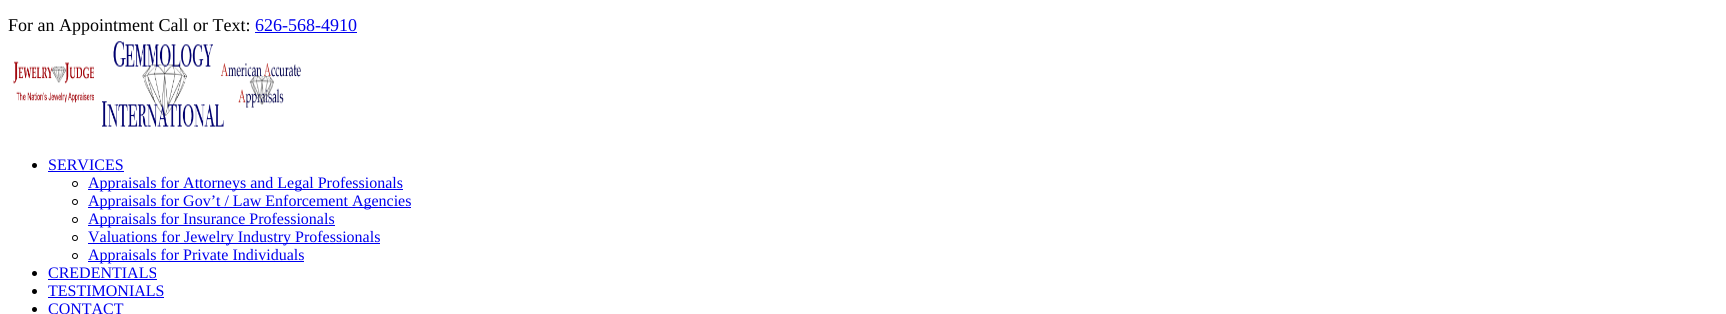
#include <cairo.h>
#include <math.h>
#include <stddef.h>


static void set_color(cairo_t *cr, unsigned color) {
    cairo_set_source_rgb(cr, (color >> 16) / 255.0, (color >> 8 & 255) / 255.0, (color & 255) / 255.0);
}

static void draw_text(cairo_t *cr, double x, double y, const char *s, const char *family, double size, int italic, int bold, unsigned color) {
    cairo_select_font_face(cr, family, italic ? CAIRO_FONT_SLANT_ITALIC : CAIRO_FONT_SLANT_NORMAL,
        bold ? CAIRO_FONT_WEIGHT_BOLD : CAIRO_FONT_WEIGHT_NORMAL);
    cairo_set_font_size(cr, size);
    set_color(cr, color);
    cairo_move_to(cr, x, y);
    cairo_show_text(cr, s);
}

static void fill_rect(cairo_t *cr, double x, double y, double w, double h, unsigned color) {
    set_color(cr, color);
    cairo_rectangle(cr, x, y, w, h);
    cairo_fill(cr);
}

static void draw_image(cairo_t *cr, const char *path, double x, double y, double w, double h) {
    cairo_surface_t *image = cairo_image_surface_create_from_png(path);
    cairo_save(cr);
    cairo_set_source_surface(cr, image, x, y);
    cairo_rectangle(cr, x, y, w, h);
    cairo_fill(cr);
    cairo_restore(cr);
    cairo_surface_destroy(image);
}

int main(void) {
    cairo_surface_t *surface = cairo_image_surface_create(CAIRO_FORMAT_RGB24, 1726, 314);
    cairo_t *cr = cairo_create(surface);
    cairo_font_options_t *options = cairo_font_options_create();
    cairo_font_options_set_hint_metrics(options, CAIRO_HINT_METRICS_OFF);
    cairo_font_options_set_hint_style(options, CAIRO_HINT_STYLE_NONE);
    cairo_set_font_options(cr, options);
    cairo_set_miter_limit(cr, 4);
    set_color(cr, 0xFFFFFF);
    cairo_paint(cr);
    draw_text(cr, 8, 31, "For an Appointment Call or Text:", "Liberation Serif", 18, 0, 0, 0x000000);
    draw_text(cr, 255, 31, "626-568-4910", "Liberation Serif", 18, 0, 0, 0x0000EE);
    fill_rect(cr, 255, 32, 102, 1, 0x0000EE);
    draw_image(cr, "assets/img1.png", 13, 41, 288, 86);
    set_color(cr, 0x000000);
    cairo_arc(cr, 34.5, 165.5, 2.5, 0, 2 * M_PI);
    cairo_fill(cr);
    draw_text(cr, 48, 170, "SERVICES", "Liberation Serif", 16, 0, 0, 0x0000EE);
    fill_rect(cr, 48, 171, 76, 1, 0x0000EE);
    cairo_new_path(cr);
    cairo_arc(cr, 75, 184, 2.5, 0, 2 * M_PI);
    set_color(cr, 0x000000);
    cairo_set_line_width(cr, 1);
    cairo_stroke(cr);
    fill_rect(cr, 88, 189, 315, 1, 0x0000EE);
    draw_text(cr, 88, 188, "Appraisals for Attorneys and Legal Professionals", "Liberation Serif", 16, 0, 0, 0x0000EE);
    cairo_new_path(cr);
    cairo_arc(cr, 75, 202, 2.5, 0, 2 * M_PI);
    set_color(cr, 0x000000);
    cairo_stroke(cr);
    fill_rect(cr, 88, 207, 323, 1, 0x0000EE);
    draw_text(cr, 88, 206, "Appraisals for Gov’t / Law Enforcement Agencies", "Liberation Serif", 16, 0, 0, 0x0000EE);
    cairo_new_path(cr);
    cairo_arc(cr, 75, 220, 2.5, 0, 2 * M_PI);
    set_color(cr, 0x000000);
    cairo_stroke(cr);
    fill_rect(cr, 88, 225, 247, 1, 0x0000EE);
    draw_text(cr, 88, 224, "Appraisals for Insurance Professionals", "Liberation Serif", 16, 0, 0, 0x0000EE);
    cairo_new_path(cr);
    cairo_arc(cr, 75, 238, 2.5, 0, 2 * M_PI);
    set_color(cr, 0x000000);
    cairo_stroke(cr);
    fill_rect(cr, 88, 243, 292, 1, 0x0000EE);
    draw_text(cr, 88, 242, "Valuations for Jewelry Industry Professionals", "Liberation Serif", 16, 0, 0, 0x0000EE);
    cairo_new_path(cr);
    cairo_arc(cr, 75, 256, 2.5, 0, 2 * M_PI);
    set_color(cr, 0x000000);
    cairo_stroke(cr);
    fill_rect(cr, 88, 261, 216, 1, 0x0000EE);
    draw_text(cr, 88, 260, "Appraisals for Private Individuals", "Liberation Serif", 16, 0, 0, 0x0000EE);
    set_color(cr, 0x000000);
    cairo_new_path(cr);
    cairo_arc(cr, 34.5, 273.5, 2.5, 0, 2 * M_PI);
    cairo_fill(cr);
    draw_text(cr, 48, 278, "CREDENTIALS", "Liberation Serif", 16, 0, 0, 0x0000EE);
    fill_rect(cr, 48, 279, 109, 1, 0x0000EE);
    set_color(cr, 0x000000);
    cairo_new_path(cr);
    cairo_arc(cr, 34.5, 291.5, 2.5, 0, 2 * M_PI);
    cairo_fill(cr);
    draw_text(cr, 48, 296, "TESTIMONIALS", "Liberation Serif", 16, 0, 0, 0x0000EE);
    fill_rect(cr, 48, 297, 116, 1, 0x0000EE);
    set_color(cr, 0x000000);
    cairo_new_path(cr);
    cairo_arc(cr, 34.5, 309.5, 2.5, 0, 2 * M_PI);
    cairo_fill(cr);
    draw_text(cr, 48, 314, "CONTACT", "Liberation Serif", 16, 0, 0, 0x0000EE);
    cairo_surface_write_to_png(surface, "output.png");
    cairo_font_options_destroy(options);
    cairo_destroy(cr);
    cairo_surface_destroy(surface);
    return 0;
}
